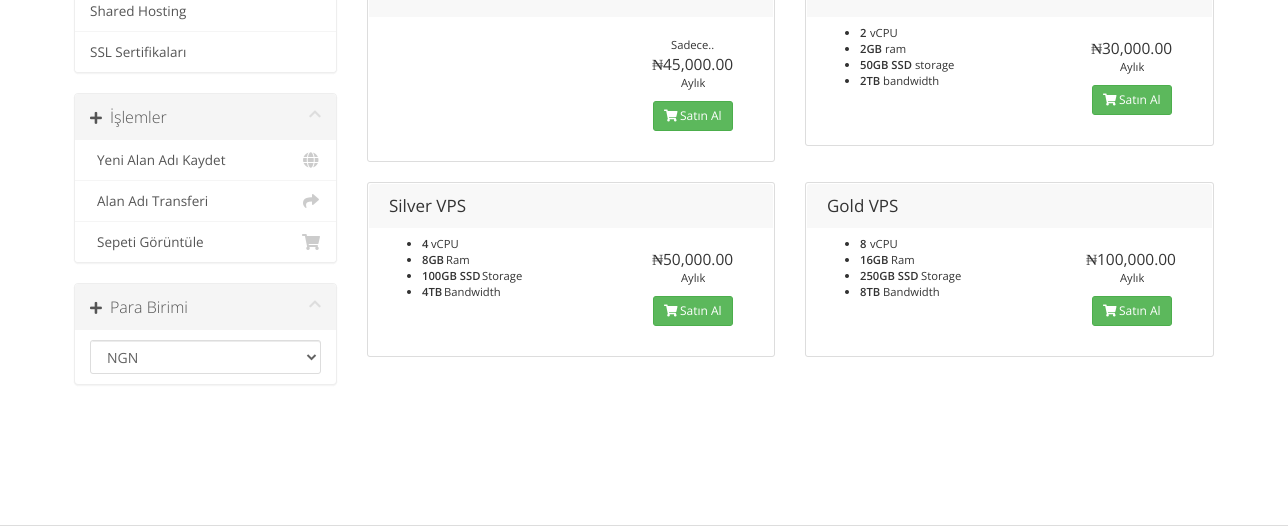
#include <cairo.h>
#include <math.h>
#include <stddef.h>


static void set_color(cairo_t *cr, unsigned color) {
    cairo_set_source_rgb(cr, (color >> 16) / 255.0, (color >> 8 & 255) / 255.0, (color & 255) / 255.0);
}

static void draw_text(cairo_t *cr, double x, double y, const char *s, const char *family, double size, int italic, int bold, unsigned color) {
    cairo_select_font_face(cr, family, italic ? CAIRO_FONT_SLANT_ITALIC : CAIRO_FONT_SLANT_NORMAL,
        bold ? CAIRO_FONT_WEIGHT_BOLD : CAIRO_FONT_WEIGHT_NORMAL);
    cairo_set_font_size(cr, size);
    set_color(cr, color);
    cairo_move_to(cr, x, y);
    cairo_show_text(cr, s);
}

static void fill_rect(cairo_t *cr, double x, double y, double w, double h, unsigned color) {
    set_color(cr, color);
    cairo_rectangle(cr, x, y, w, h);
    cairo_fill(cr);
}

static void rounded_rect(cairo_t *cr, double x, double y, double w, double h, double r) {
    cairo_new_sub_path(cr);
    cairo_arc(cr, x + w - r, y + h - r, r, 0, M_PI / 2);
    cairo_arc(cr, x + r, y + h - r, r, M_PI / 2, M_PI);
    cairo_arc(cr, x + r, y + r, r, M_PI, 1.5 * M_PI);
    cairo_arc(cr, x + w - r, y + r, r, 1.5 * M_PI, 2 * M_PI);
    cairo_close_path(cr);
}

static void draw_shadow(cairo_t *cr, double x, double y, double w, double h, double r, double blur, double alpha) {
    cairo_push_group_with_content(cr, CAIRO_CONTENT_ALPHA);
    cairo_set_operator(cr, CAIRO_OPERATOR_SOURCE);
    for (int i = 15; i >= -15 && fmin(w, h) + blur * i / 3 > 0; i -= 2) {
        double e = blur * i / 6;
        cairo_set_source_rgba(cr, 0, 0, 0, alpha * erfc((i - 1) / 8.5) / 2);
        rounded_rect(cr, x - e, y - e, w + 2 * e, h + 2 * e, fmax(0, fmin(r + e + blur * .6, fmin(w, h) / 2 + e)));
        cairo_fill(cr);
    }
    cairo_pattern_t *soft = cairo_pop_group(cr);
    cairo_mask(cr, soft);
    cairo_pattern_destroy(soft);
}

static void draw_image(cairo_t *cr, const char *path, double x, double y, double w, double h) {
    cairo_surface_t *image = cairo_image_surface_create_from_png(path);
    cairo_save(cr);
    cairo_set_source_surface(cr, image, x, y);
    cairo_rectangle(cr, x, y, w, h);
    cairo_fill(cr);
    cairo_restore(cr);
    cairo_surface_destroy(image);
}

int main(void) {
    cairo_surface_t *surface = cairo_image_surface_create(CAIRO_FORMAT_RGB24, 1288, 526);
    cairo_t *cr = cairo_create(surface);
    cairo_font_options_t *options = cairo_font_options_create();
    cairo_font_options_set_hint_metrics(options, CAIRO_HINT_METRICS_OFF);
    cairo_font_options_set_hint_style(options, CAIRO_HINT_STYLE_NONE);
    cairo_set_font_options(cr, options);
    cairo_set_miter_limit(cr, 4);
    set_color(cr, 0xFFFFFF);
    cairo_paint(cr);
    set_color(cr, 0x000000);
    draw_shadow(cr, 74, -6, 263, 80, 4, 0.5, 0.05);
    set_color(cr, 0xFFFFFF);
    rounded_rect(cr, 74.5, -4.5, 262, 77, 3.5);
    cairo_fill_preserve(cr);
    set_color(cr, 0xEEEEEE);
    cairo_set_line_width(cr, 1);
    cairo_stroke(cr);
    fill_rect(cr, 75, 31, 261, 1, 0xF5F5F5);
    draw_text(cr, 90, 16, "Shared Hosting", "Open Sans", 13.5, 0, 0, 0x555555);
    set_color(cr, 0xFFFFFF);
    cairo_new_path(cr);
    cairo_move_to(cr, 75, 32);
    cairo_line_to(cr, 336, 32);
    cairo_line_to(cr, 336, 69);
    cairo_curve_to(cr, 336, 70.5, 334.5, 72, 333, 72);
    cairo_line_to(cr, 78, 72);
    cairo_curve_to(cr, 76.5, 72, 75, 70.5, 75, 69);
    cairo_close_path(cr);
    cairo_fill(cr);
    draw_text(cr, 90, 57, "SSL Sertifikaları", "Open Sans", 13.5, 0, 0, 0x555555);
    set_color(cr, 0x000000);
    draw_shadow(cr, 74, 94, 263, 170, 4, 0.5, 0.05);
    set_color(cr, 0xFFFFFF);
    rounded_rect(cr, 74.5, 93.5, 262, 169, 3.5);
    cairo_fill_preserve(cr);
    set_color(cr, 0xEEEEEE);
    cairo_stroke(cr);
    set_color(cr, 0xF5F5F5);
    cairo_new_path(cr);
    cairo_move_to(cr, 78, 94);
    cairo_line_to(cr, 333, 94);
    cairo_curve_to(cr, 334.5, 94, 336, 95.5, 336, 97);
    cairo_line_to(cr, 336, 140);
    cairo_line_to(cr, 75, 140);
    cairo_line_to(cr, 75, 97);
    cairo_curve_to(cr, 75, 95.5, 76.5, 94, 78, 94);
    cairo_close_path(cr);
    cairo_fill(cr);
    draw_image(cr, "assets/img1.png", 90, 111, 12, 13);
    draw_text(cr, 110, 123, "İşlemler", "Open Sans Light", 16, 0, 0, 0x555555);
    draw_image(cr, "assets/img2.png", 309, 110, 12, 8);
    fill_rect(cr, 75, 180, 261, 1, 0xF5F5F5);
    draw_text(cr, 97, 165, "Yeni Alan Adı Kaydet", "Open Sans", 13.5, 0, 0, 0x555555);
    draw_image(cr, "assets/img3.png", 303, 152, 16, 16);
    fill_rect(cr, 75, 221, 261, 1, 0xF5F5F5);
    draw_text(cr, 97, 206, "Alan Adı Transferi", "Open Sans", 13.5, 0, 0, 0x555555);
    draw_image(cr, "assets/img4.png", 303, 194, 16, 14);
    set_color(cr, 0xFFFFFF);
    cairo_new_path(cr);
    cairo_move_to(cr, 75, 222);
    cairo_line_to(cr, 336, 222);
    cairo_line_to(cr, 336, 259);
    cairo_curve_to(cr, 336, 260.5, 334.5, 262, 333, 262);
    cairo_line_to(cr, 78, 262);
    cairo_curve_to(cr, 76.5, 262, 75, 260.5, 75, 259);
    cairo_close_path(cr);
    cairo_fill(cr);
    draw_text(cr, 97, 247, "Sepeti Görüntüle", "Open Sans", 13.5, 0, 0, 0x555555);
    draw_image(cr, "assets/img5.png", 302, 234, 18, 16);
    set_color(cr, 0x000000);
    draw_shadow(cr, 74, 284, 263, 102, 4, 0.5, 0.05);
    set_color(cr, 0xFFFFFF);
    rounded_rect(cr, 74.5, 283.5, 262, 101, 3.5);
    cairo_fill_preserve(cr);
    set_color(cr, 0xEEEEEE);
    cairo_stroke(cr);
    set_color(cr, 0xF5F5F5);
    cairo_new_path(cr);
    cairo_move_to(cr, 78, 284);
    cairo_line_to(cr, 333, 284);
    cairo_curve_to(cr, 334.5, 284, 336, 285.5, 336, 287);
    cairo_line_to(cr, 336, 330);
    cairo_line_to(cr, 75, 330);
    cairo_line_to(cr, 75, 287);
    cairo_curve_to(cr, 75, 285.5, 76.5, 284, 78, 284);
    cairo_close_path(cr);
    cairo_fill(cr);
    draw_image(cr, "assets/img1.png", 90, 301, 12, 13);
    draw_text(cr, 110, 313, "Para Birimi", "Open Sans Light", 16, 0, 0, 0x555555);
    draw_image(cr, "assets/img2.png", 309, 300, 12, 8);
    set_color(cr, 0xECECEC);
    cairo_new_path(cr);
    cairo_move_to(cr, 93, 342);
    cairo_line_to(cr, 318, 342);
    cairo_curve_to(cr, 319, 342, 320, 343, 320, 344);
    cairo_curve_to(cr, 320, 343, 320, 341, 318, 341);
    cairo_line_to(cr, 93, 341);
    cairo_line_to(cr, 92, 342);
    cairo_line_to(cr, 91, 344);
    cairo_curve_to(cr, 91, 343, 92, 342, 93, 342);
    cairo_close_path(cr);
    cairo_fill(cr);
    rounded_rect(cr, 90.5, 340.5, 230, 33, 2.5);
    set_color(cr, 0xDDDDDD);
    cairo_stroke(cr);
    cairo_new_path(cr);
    cairo_move_to(cr, 307.5, 355);
    cairo_line_to(cr, 311.5, 359);
    cairo_line_to(cr, 315.5, 355);
    set_color(cr, 0x626262);
    cairo_set_line_width(cr, 2);
    cairo_stroke(cr);
    draw_text(cr, 107, 363, "NGN", "Open Sans", 14, 0, 0, 0x626262);
    rounded_rect(cr, 367.5, -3.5, 407, 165, 2.5);
    set_color(cr, 0xDDDDDD);
    cairo_set_line_width(cr, 1);
    cairo_stroke(cr);
    fill_rect(cr, 369, 0, 404, 17, 0xF8F8F8);
    draw_text(cr, 671, 49, "Sadece..", "Open Sans", 11.25, 0, 0, 0x333333);
    draw_text(cr, 652, 70, "₦", "Liberation Serif", 15.5, 0, 0, 0x333333);
    draw_text(cr, 663, 70, "45,000.00", "Open Sans", 15.5, 0, 0, 0x333333);
    draw_text(cr, 681, 87, "Aylık", "Open Sans", 11.25, 0, 0, 0x333333);
    set_color(cr, 0x5CB85C);
    rounded_rect(cr, 653.5, 101.5, 79, 29, 2.5);
    cairo_fill_preserve(cr);
    set_color(cr, 0x4CAE4C);
    cairo_stroke(cr);
    draw_image(cr, "assets/img6.png", 664, 109, 14, 13);
    draw_text(cr, 680, 120, "Satın Al", "Open Sans", 12, 0, 0, 0xFFFFFF);
    rounded_rect(cr, 805.5, -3.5, 408, 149, 2.5);
    set_color(cr, 0xDDDDDD);
    cairo_stroke(cr);
    fill_rect(cr, 807, 0, 405, 17, 0xF8F8F8);
    set_color(cr, 0x333333);
    cairo_arc(cr, 847, 33, 2, 0, 2 * M_PI);
    cairo_fill(cr);
    draw_text(cr, 860, 37, "2", "Open Sans SemiBold", 11.25, 0, 0, 0x333333);
    draw_text(cr, 870, 37, "vCPU", "Open Sans", 11.25, 0, 0, 0x333333);
    cairo_new_path(cr);
    cairo_arc(cr, 847, 49, 2, 0, 2 * M_PI);
    cairo_fill(cr);
    draw_text(cr, 860, 53, "2GB", "Open Sans SemiBold", 11.25, 0, 0, 0x333333);
    draw_text(cr, 885, 53, "ram", "Open Sans", 11.25, 0, 0, 0x333333);
    cairo_new_path(cr);
    cairo_arc(cr, 847, 65, 2, 0, 2 * M_PI);
    cairo_fill(cr);
    draw_text(cr, 860, 69, "50GB SSD", "Open Sans SemiBold", 11.25, 0, 0, 0x333333);
    draw_text(cr, 915, 69, "storage", "Open Sans", 11.25, 0, 0, 0x333333);
    cairo_new_path(cr);
    cairo_arc(cr, 847, 81, 2, 0, 2 * M_PI);
    cairo_fill(cr);
    draw_text(cr, 860, 85, "2TB", "Open Sans SemiBold", 11.25, 0, 0, 0x333333);
    draw_text(cr, 883, 85, "bandwidth", "Open Sans", 11.25, 0, 0, 0x333333);
    draw_text(cr, 1091, 54, "₦", "Liberation Serif", 15.5, 0, 0, 0x333333);
    draw_text(cr, 1102, 54, "30,000.00", "Open Sans", 15.5, 0, 0, 0x333333);
    draw_text(cr, 1120, 71, "Aylık", "Open Sans", 11.25, 0, 0, 0x333333);
    set_color(cr, 0x5CB85C);
    rounded_rect(cr, 1092.5, 85.5, 79, 29, 2.5);
    cairo_fill_preserve(cr);
    set_color(cr, 0x4CAE4C);
    cairo_stroke(cr);
    draw_image(cr, "assets/img6.png", 1103, 93, 14, 13);
    draw_text(cr, 1119, 104, "Satın Al", "Open Sans", 12, 0, 0, 0xFFFFFF);
    rounded_rect(cr, 367.5, 182.5, 407, 174, 2.5);
    set_color(cr, 0xDDDDDD);
    cairo_stroke(cr);
    set_color(cr, 0xF8F8F8);
    cairo_new_path(cr);
    cairo_move_to(cr, 372, 184);
    cairo_line_to(cr, 770, 184);
    cairo_curve_to(cr, 771.5, 184, 773, 185.5, 773, 187);
    cairo_line_to(cr, 773, 228);
    cairo_line_to(cr, 369, 228);
    cairo_line_to(cr, 369, 187);
    cairo_curve_to(cr, 369, 185.5, 370.5, 184, 372, 184);
    cairo_close_path(cr);
    cairo_fill(cr);
    draw_text(cr, 389, 212, "Silver VPS", "Open Sans", 17, 0, 0, 0x333333);
    cairo_new_path(cr);
    cairo_arc(cr, 409, 244, 2, 0, 2 * M_PI);
    cairo_fill(cr);
    draw_text(cr, 422, 248, "4", "Open Sans SemiBold", 11.25, 0, 0, 0x333333);
    draw_text(cr, 431, 248, "vCPU", "Open Sans", 11.25, 0, 0, 0x333333);
    cairo_new_path(cr);
    cairo_arc(cr, 409, 260, 2, 0, 2 * M_PI);
    cairo_fill(cr);
    draw_text(cr, 422, 264, "8GB", "Open Sans SemiBold", 11.25, 0, 0, 0x333333);
    draw_text(cr, 446, 264, "Ram", "Open Sans", 11.25, 0, 0, 0x333333);
    cairo_new_path(cr);
    cairo_arc(cr, 409, 276, 2, 0, 2 * M_PI);
    cairo_fill(cr);
    draw_text(cr, 422, 280, "100GB SSD", "Open Sans SemiBold", 11.25, 0, 0, 0x333333);
    draw_text(cr, 482, 280, "Storage", "Open Sans", 11.25, 0, 0, 0x333333);
    cairo_new_path(cr);
    cairo_arc(cr, 409, 292, 2, 0, 2 * M_PI);
    cairo_fill(cr);
    draw_text(cr, 422, 296, "4TB", "Open Sans SemiBold", 11.25, 0, 0, 0x333333);
    draw_text(cr, 444, 296, "Bandwidth", "Open Sans", 11.25, 0, 0, 0x333333);
    draw_text(cr, 652, 265, "₦", "Liberation Serif", 15.5, 0, 0, 0x333333);
    draw_text(cr, 663, 265, "50,000.00", "Open Sans", 15.5, 0, 0, 0x333333);
    draw_text(cr, 681, 282, "Aylık", "Open Sans", 11.25, 0, 0, 0x333333);
    set_color(cr, 0x5CB85C);
    rounded_rect(cr, 653.5, 296.5, 79, 29, 2.5);
    cairo_fill_preserve(cr);
    set_color(cr, 0x4CAE4C);
    cairo_stroke(cr);
    draw_image(cr, "assets/img6.png", 664, 304, 14, 13);
    draw_text(cr, 680, 315, "Satın Al", "Open Sans", 12, 0, 0, 0xFFFFFF);
    rounded_rect(cr, 805.5, 182.5, 408, 174, 2.5);
    set_color(cr, 0xDDDDDD);
    cairo_stroke(cr);
    set_color(cr, 0xF8F8F8);
    cairo_new_path(cr);
    cairo_move_to(cr, 810, 184);
    cairo_line_to(cr, 1209, 184);
    cairo_curve_to(cr, 1210.5, 184, 1212, 185.5, 1212, 187);
    cairo_line_to(cr, 1212, 228);
    cairo_line_to(cr, 807, 228);
    cairo_line_to(cr, 807, 187);
    cairo_curve_to(cr, 807, 185.5, 808.5, 184, 810, 184);
    cairo_close_path(cr);
    cairo_fill(cr);
    draw_text(cr, 827, 212, "Gold VPS", "Open Sans", 17, 0, 0, 0x333333);
    cairo_new_path(cr);
    cairo_arc(cr, 847, 244, 2, 0, 2 * M_PI);
    cairo_fill(cr);
    draw_text(cr, 860, 248, "8", "Open Sans SemiBold", 11.25, 0, 0, 0x333333);
    draw_text(cr, 870, 248, "vCPU", "Open Sans", 11.25, 0, 0, 0x333333);
    cairo_new_path(cr);
    cairo_arc(cr, 847, 260, 2, 0, 2 * M_PI);
    cairo_fill(cr);
    draw_text(cr, 860, 264, "16GB", "Open Sans SemiBold", 11.25, 0, 0, 0x333333);
    draw_text(cr, 891, 264, "Ram", "Open Sans", 11.25, 0, 0, 0x333333);
    cairo_new_path(cr);
    cairo_arc(cr, 847, 276, 2, 0, 2 * M_PI);
    cairo_fill(cr);
    draw_text(cr, 860, 280, "250GB SSD", "Open Sans SemiBold", 11.25, 0, 0, 0x333333);
    draw_text(cr, 921, 280, "Storage", "Open Sans", 11.25, 0, 0, 0x333333);
    cairo_new_path(cr);
    cairo_arc(cr, 847, 292, 2, 0, 2 * M_PI);
    cairo_fill(cr);
    draw_text(cr, 860, 296, "8TB", "Open Sans SemiBold", 11.25, 0, 0, 0x333333);
    draw_text(cr, 883, 296, "Bandwidth", "Open Sans", 11.25, 0, 0, 0x333333);
    draw_text(cr, 1086, 265, "₦", "Liberation Serif", 15.5, 0, 0, 0x333333);
    draw_text(cr, 1097, 265, "100,000.00", "Open Sans", 15.5, 0, 0, 0x333333);
    draw_text(cr, 1120, 282, "Aylık", "Open Sans", 11.25, 0, 0, 0x333333);
    set_color(cr, 0x5CB85C);
    rounded_rect(cr, 1092.5, 296.5, 79, 29, 2.5);
    cairo_fill_preserve(cr);
    set_color(cr, 0x4CAE4C);
    cairo_stroke(cr);
    draw_image(cr, "assets/img6.png", 1103, 304, 14, 13);
    draw_text(cr, 1119, 315, "Satın Al", "Open Sans", 12, 0, 0, 0xFFFFFF);
    fill_rect(cr, 0, 525, 1288, 1, 0xDDDDDD);
    cairo_surface_write_to_png(surface, "output.png");
    cairo_font_options_destroy(options);
    cairo_destroy(cr);
    cairo_surface_destroy(surface);
    return 0;
}
